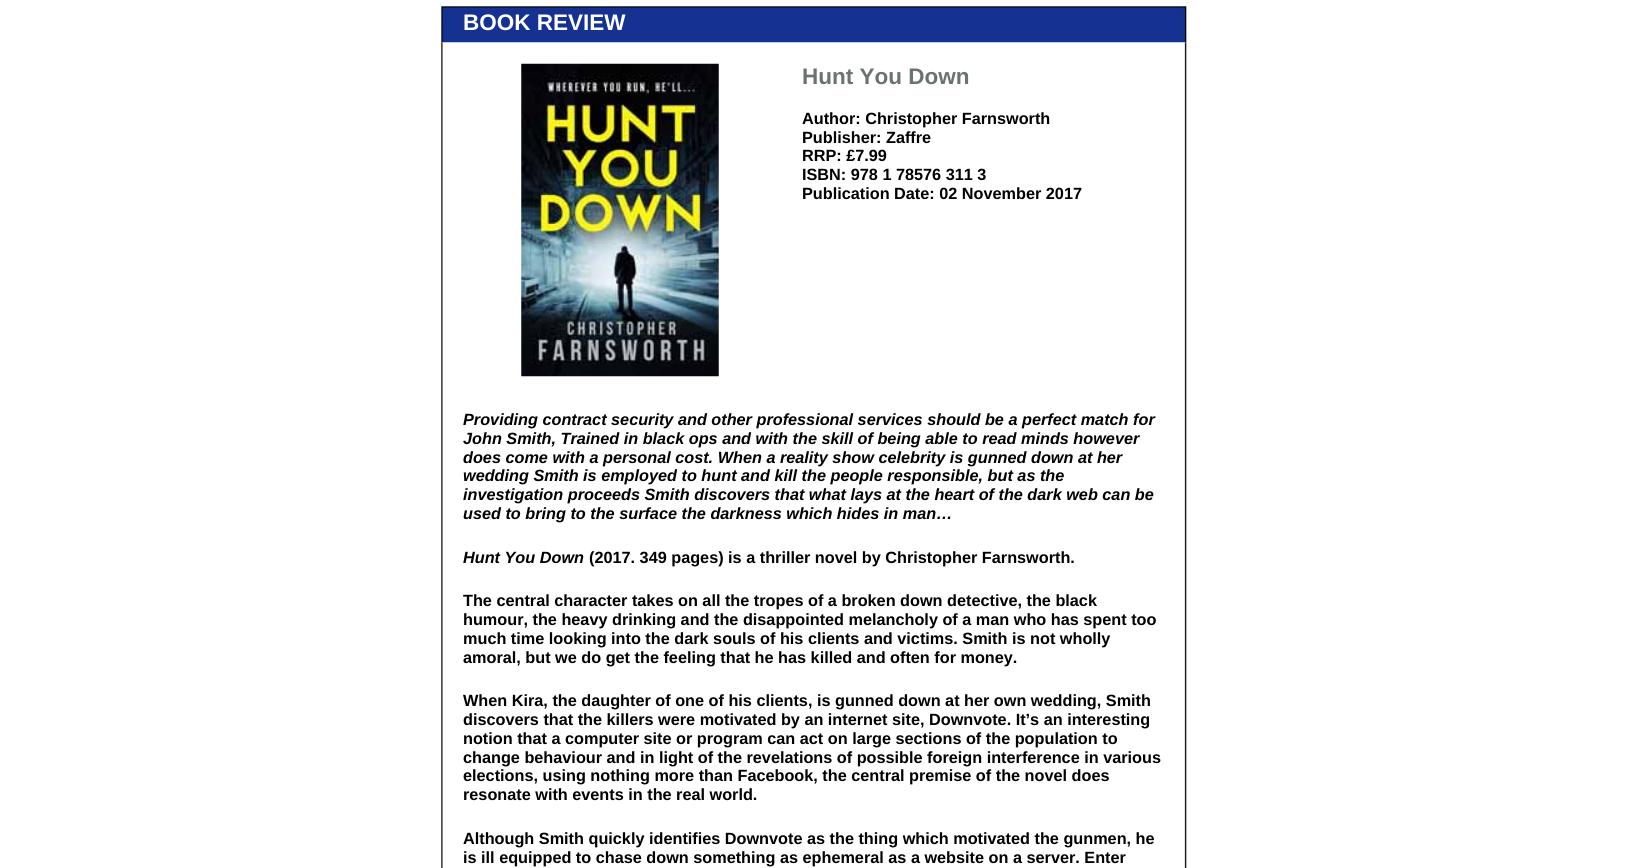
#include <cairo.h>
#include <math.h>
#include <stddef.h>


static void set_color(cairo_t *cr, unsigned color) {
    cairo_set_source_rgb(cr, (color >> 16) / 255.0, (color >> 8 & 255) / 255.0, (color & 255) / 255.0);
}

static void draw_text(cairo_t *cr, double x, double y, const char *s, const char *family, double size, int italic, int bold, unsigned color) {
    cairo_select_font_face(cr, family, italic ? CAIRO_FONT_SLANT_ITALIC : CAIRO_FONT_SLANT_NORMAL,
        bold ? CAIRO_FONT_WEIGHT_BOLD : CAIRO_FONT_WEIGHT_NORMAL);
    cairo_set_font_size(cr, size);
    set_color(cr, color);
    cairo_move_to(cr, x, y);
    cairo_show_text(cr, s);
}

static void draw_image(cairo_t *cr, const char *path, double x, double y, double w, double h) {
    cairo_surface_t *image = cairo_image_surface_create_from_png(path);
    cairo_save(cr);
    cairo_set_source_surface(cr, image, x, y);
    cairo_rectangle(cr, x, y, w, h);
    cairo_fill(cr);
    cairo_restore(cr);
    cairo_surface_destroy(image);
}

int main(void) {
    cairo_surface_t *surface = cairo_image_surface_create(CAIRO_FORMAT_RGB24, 1626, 868);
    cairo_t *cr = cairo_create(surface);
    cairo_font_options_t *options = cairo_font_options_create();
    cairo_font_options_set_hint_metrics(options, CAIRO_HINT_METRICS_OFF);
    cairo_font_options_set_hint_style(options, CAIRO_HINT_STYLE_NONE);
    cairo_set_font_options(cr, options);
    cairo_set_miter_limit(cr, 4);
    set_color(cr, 0xFFFFFF);
    cairo_paint(cr);
    draw_image(cr, "assets/img1.png", 439, 6, 748, 37);
    draw_text(cr, 463, 30, "BOOK REVIEW", "Liberation Sans", 22.5, 0, 1, 0xFFFFFF);
    draw_image(cr, "assets/img2.png", 441, 42, 746, 826);
    draw_image(cr, "assets/img3.png", 521, 63, 198, 314);
    draw_text(cr, 802, 84, "Hunt You Down", "Liberation Sans", 22.5, 0, 1, 0x6B7272);
    draw_text(cr, 802, 124, "Author: Christopher Farnsworth", "Liberation Sans", 16.25, 0, 1, 0x000000);
    draw_text(cr, 802, 143, "Publisher: Zaffre", "Liberation Sans", 16.25, 0, 1, 0x000000);
    draw_text(cr, 802, 161, "RRP: £7.99", "Liberation Sans", 16.25, 0, 1, 0x000000);
    draw_text(cr, 802, 180, "ISBN: 978 1 78576 311 3", "Liberation Sans", 16.25, 0, 1, 0x000000);
    draw_text(cr, 802, 199, "Publication Date: 02 November 2017", "Liberation Sans", 16.25, 0, 1, 0x000000);
    draw_text(cr, 463, 425, "Providing contract security and other professional services should be a perfect match for", "Liberation Sans", 16.25, 1, 1, 0x000000);
    draw_text(cr, 463, 444, "John Smith, Trained in black ops and with the skill of being able to read minds however", "Liberation Sans", 16.25, 1, 1, 0x000000);
    draw_text(cr, 463, 463, "does come with a personal cost. When a reality show celebrity is gunned down at her", "Liberation Sans", 16.25, 1, 1, 0x000000);
    draw_text(cr, 463, 481, "wedding Smith is employed to hunt and kill the people responsible, but as the", "Liberation Sans", 16.25, 1, 1, 0x000000);
    draw_text(cr, 463, 500, "investigation proceeds Smith discovers that what lays at the heart of the dark web can be", "Liberation Sans", 16.25, 1, 1, 0x000000);
    draw_text(cr, 463, 519, "used to bring to the surface the darkness which hides in man…", "Liberation Sans", 16.25, 1, 1, 0x000000);
    draw_text(cr, 463, 563, "Hunt You Down", "Liberation Sans", 16.25, 1, 1, 0x000000);
    draw_text(cr, 589, 563, "(2017. 349 pages) is a thriller novel by Christopher Farnsworth.", "Liberation Sans", 16.25, 0, 1, 0x000000);
    draw_text(cr, 463, 606, "The central character takes on all the tropes of a broken down detective, the black", "Liberation Sans", 16.25, 0, 1, 0x000000);
    draw_text(cr, 463, 625, "humour, the heavy drinking and the disappointed melancholy of a man who has spent too", "Liberation Sans", 16.25, 0, 1, 0x000000);
    draw_text(cr, 463, 644, "much time looking into the dark souls of his clients and victims. Smith is not wholly", "Liberation Sans", 16.25, 0, 1, 0x000000);
    draw_text(cr, 463, 663, "amoral, but we do get the feeling that he has killed and often for money.", "Liberation Sans", 16.25, 0, 1, 0x000000);
    draw_text(cr, 463, 706, "When Kira, the daughter of one of his clients, is gunned down at her own wedding, Smith", "Liberation Sans", 16.25, 0, 1, 0x000000);
    draw_text(cr, 463, 725, "discovers that the killers were motivated by an internet site, Downvote. It’s an interesting", "Liberation Sans", 16.25, 0, 1, 0x000000);
    draw_text(cr, 463, 744, "notion that a computer site or program can act on large sections of the population to", "Liberation Sans", 16.25, 0, 1, 0x000000);
    draw_text(cr, 463, 763, "change behaviour and in light of the revelations of possible foreign interference in various", "Liberation Sans", 16.25, 0, 1, 0x000000);
    draw_text(cr, 463, 781, "elections, using nothing more than Facebook, the central premise of the novel does", "Liberation Sans", 16.25, 0, 1, 0x000000);
    draw_text(cr, 463, 800, "resonate with events in the real world.", "Liberation Sans", 16.25, 0, 1, 0x000000);
    draw_text(cr, 463, 844, "Although Smith quickly identifies Downvote as the thing which motivated the gunmen, he", "Liberation Sans", 16.25, 0, 1, 0x000000);
    draw_text(cr, 463, 863, "is ill equipped to chase down something as ephemeral as a website on a server. Enter", "Liberation Sans", 16.25, 0, 1, 0x000000);
    cairo_surface_write_to_png(surface, "output.png");
    cairo_font_options_destroy(options);
    cairo_destroy(cr);
    cairo_surface_destroy(surface);
    return 0;
}
